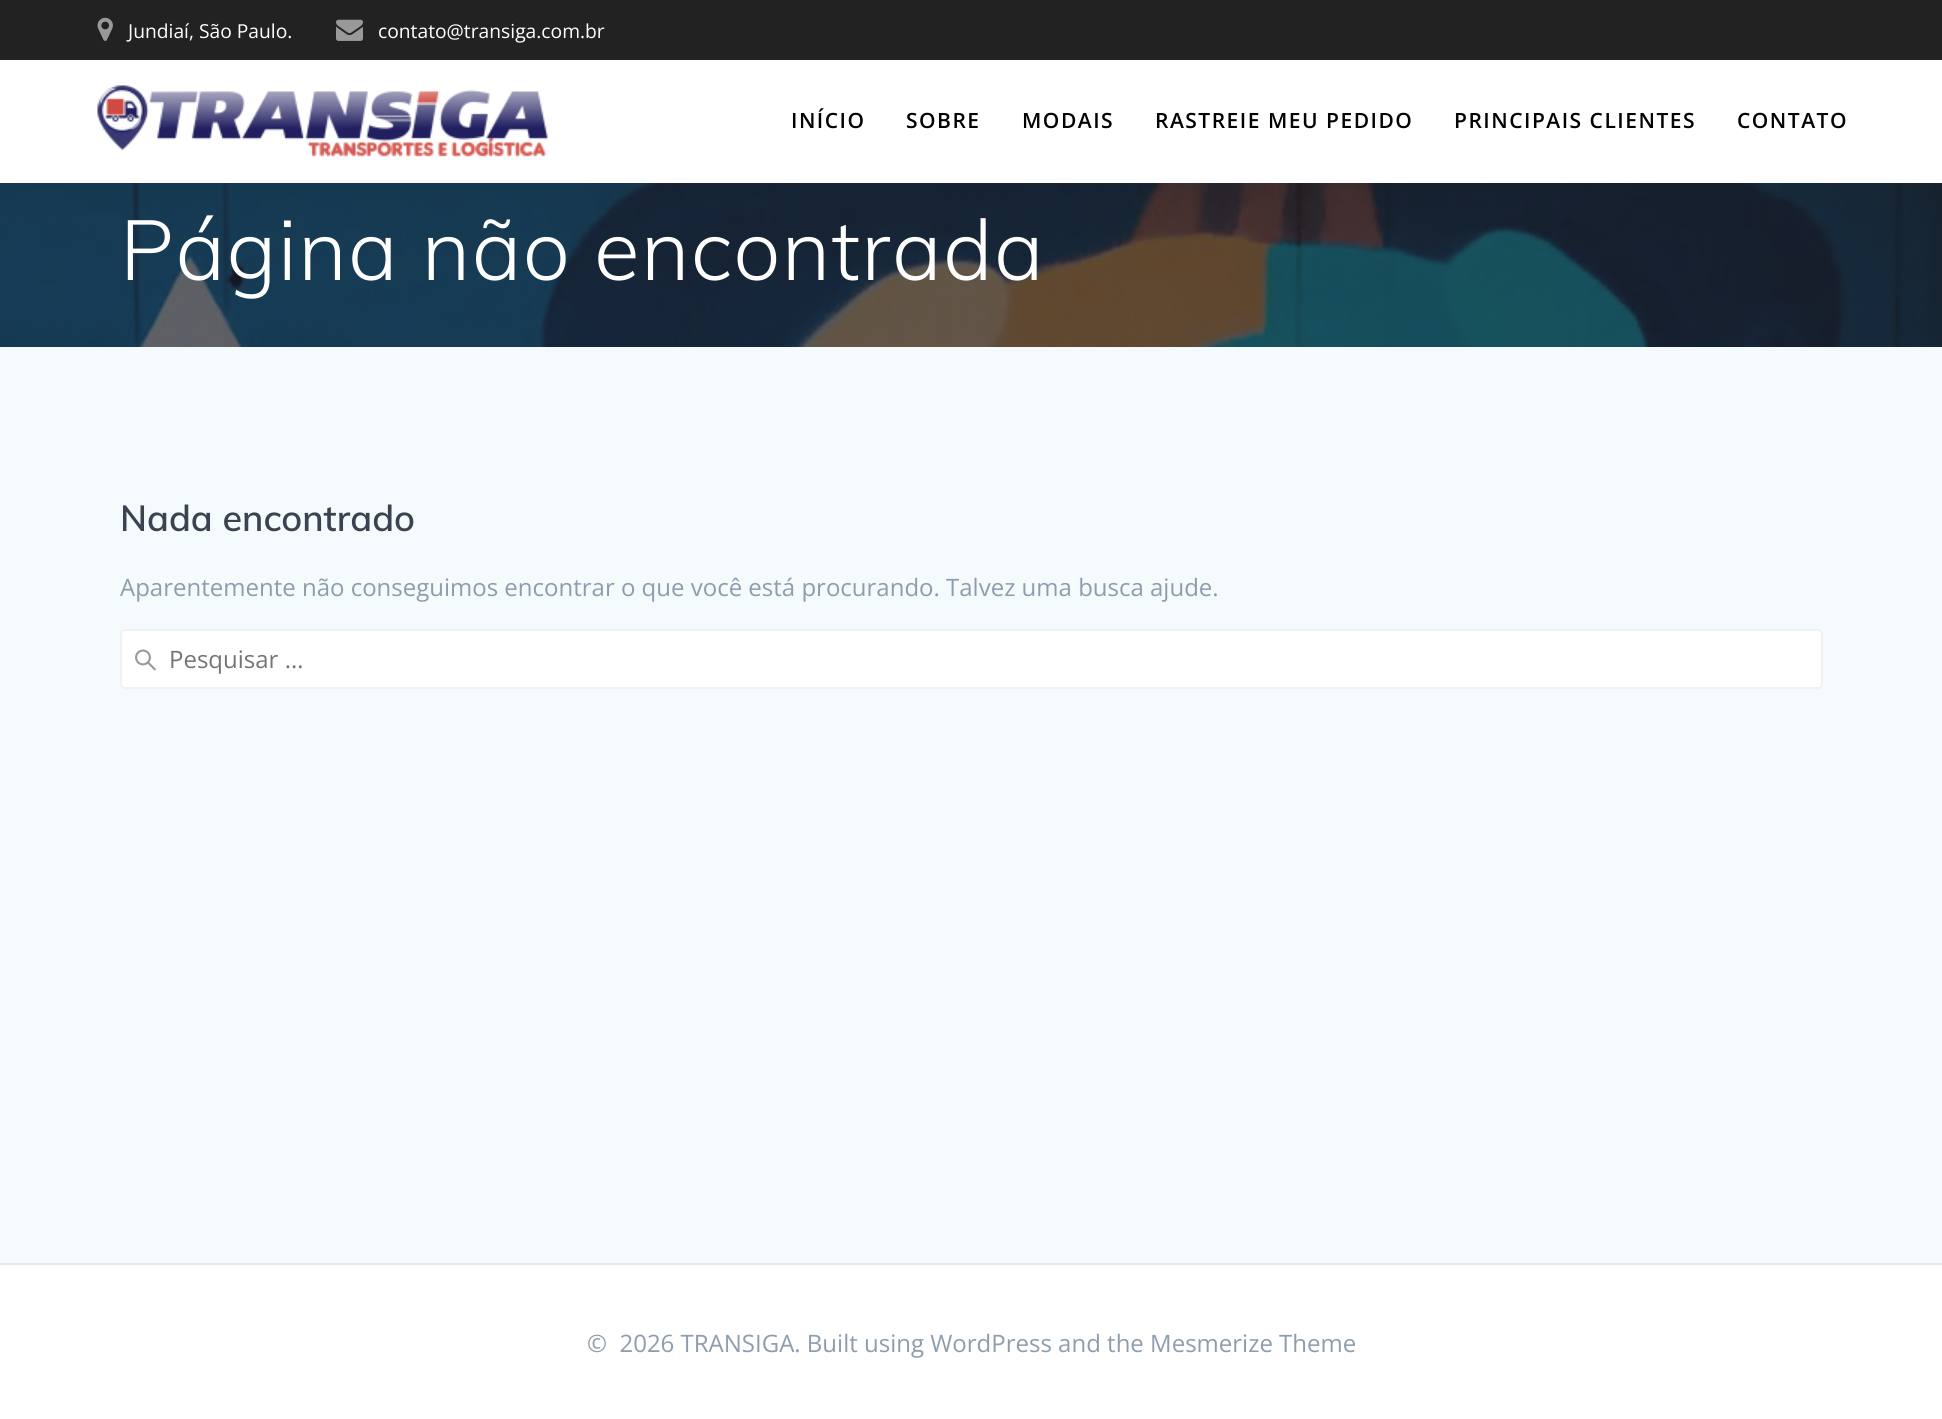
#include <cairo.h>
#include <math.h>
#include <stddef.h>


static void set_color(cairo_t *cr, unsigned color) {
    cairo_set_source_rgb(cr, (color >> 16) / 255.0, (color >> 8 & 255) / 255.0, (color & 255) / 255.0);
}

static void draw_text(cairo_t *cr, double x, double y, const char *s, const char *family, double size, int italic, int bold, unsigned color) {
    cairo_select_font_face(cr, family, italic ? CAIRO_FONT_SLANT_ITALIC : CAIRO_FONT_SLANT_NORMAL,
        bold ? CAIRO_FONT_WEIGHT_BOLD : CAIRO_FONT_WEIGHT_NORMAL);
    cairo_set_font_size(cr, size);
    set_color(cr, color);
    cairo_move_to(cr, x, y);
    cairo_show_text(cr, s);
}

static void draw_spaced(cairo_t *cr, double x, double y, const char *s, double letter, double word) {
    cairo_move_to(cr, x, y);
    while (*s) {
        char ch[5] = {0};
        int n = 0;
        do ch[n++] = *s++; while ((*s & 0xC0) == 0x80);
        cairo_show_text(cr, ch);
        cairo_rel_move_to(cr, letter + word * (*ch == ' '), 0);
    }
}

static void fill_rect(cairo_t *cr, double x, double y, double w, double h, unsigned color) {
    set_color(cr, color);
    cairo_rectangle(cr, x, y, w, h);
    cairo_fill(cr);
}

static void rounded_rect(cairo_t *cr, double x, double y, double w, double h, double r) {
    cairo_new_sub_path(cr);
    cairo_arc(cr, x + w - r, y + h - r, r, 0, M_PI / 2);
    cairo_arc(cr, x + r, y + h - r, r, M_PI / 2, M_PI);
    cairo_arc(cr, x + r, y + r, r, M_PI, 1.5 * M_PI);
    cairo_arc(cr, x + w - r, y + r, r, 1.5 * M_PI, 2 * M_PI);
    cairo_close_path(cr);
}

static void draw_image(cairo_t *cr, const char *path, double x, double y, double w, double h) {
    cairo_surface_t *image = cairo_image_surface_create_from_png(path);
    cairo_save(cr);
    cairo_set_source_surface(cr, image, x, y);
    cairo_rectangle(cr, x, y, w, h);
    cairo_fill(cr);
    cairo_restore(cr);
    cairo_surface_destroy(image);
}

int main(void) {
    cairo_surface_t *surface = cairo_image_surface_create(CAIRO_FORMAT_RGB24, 1942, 1419);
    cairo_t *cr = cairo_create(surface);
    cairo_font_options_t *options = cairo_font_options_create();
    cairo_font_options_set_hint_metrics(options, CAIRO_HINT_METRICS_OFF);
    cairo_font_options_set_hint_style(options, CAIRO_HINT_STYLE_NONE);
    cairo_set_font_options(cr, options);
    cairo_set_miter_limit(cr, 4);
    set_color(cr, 0xFFFFFF);
    cairo_paint(cr);
    fill_rect(cr, 0, 0, 1942, 60, 0x222222);
    draw_image(cr, "assets/img1.png", 97, 17, 16, 24);
    draw_text(cr, 128, 38, "Jundiaí, São Paulo.", "Open Sans", 19.25, 0, 0, 0xFFFFFF);
    draw_image(cr, "assets/img2.png", 336, 19, 27, 22);
    draw_text(cr, 378, 38, "contato@transiga.com.br", "Open Sans", 19.25, 0, 0, 0xFFFFFF);
    draw_image(cr, "assets/img3.png", 97, 85, 451, 72);
    cairo_select_font_face(cr, "Open Sans SemiBold", CAIRO_FONT_SLANT_NORMAL, CAIRO_FONT_WEIGHT_NORMAL);
    cairo_set_font_size(cr, 21);
    set_color(cr, 0x000000);
    draw_spaced(cr, 791, 128, "INÍCIO", 1.5, 0);
    draw_spaced(cr, 906, 128, "SOBRE", 1.5, 0);
    draw_spaced(cr, 1022, 128, "MODAIS", 1.5, 0);
    draw_spaced(cr, 1155, 128, "RASTREIE MEU PEDIDO", 1.5, 0);
    draw_spaced(cr, 1454, 128, "PRINCIPAIS CLIENTES", 1.5, 0);
    draw_spaced(cr, 1737, 128, "CONTATO", 1.5, 0);
    draw_image(cr, "assets/img4.png", 0, 183, 1942, 164);
    cairo_select_font_face(cr, "Muli Light", CAIRO_FONT_SLANT_NORMAL, CAIRO_FONT_WEIGHT_NORMAL);
    cairo_set_font_size(cr, 84);
    set_color(cr, 0xFFFFFF);
    draw_spaced(cr, 120, 280, "Página não encontrada", 1.35, 0);
    fill_rect(cr, 0, 347, 1942, 916, 0xF5FAFD);
    draw_text(cr, 120, 531, "Nada encontrado", "Muli SemiBold", 36, 0, 0, 0x3C424F);
    draw_text(cr, 120, 596, "Aparentemente não conseguimos encontrar o que você está procurando. Talvez uma busca ajude.", "Open Sans", 24, 0, 0, 0x8E9DAE);
    set_color(cr, 0xFFFFFF);
    rounded_rect(cr, 120, 629, 1703, 60, 5);
    cairo_fill(cr);
    draw_image(cr, "assets/img5.png", 135, 649, 21, 22);
    rounded_rect(cr, 121, 630, 1701, 58, 4);
    set_color(cr, 0xF1F1F1);
    cairo_stroke(cr);
    draw_text(cr, 169, 668, "Pesquisar …", "Open Sans", 24, 0, 0, 0x757575);
    fill_rect(cr, 0, 1263, 1942, 2, 0xE8E8E8);
    draw_text(cr, 587, 1352, "©  2026 TRANSIGA. Built using WordPress and the Mesmerize Theme", "Open Sans", 24, 0, 0, 0x8E9DAE);
    cairo_surface_write_to_png(surface, "output.png");
    cairo_font_options_destroy(options);
    cairo_destroy(cr);
    cairo_surface_destroy(surface);
    return 0;
}
